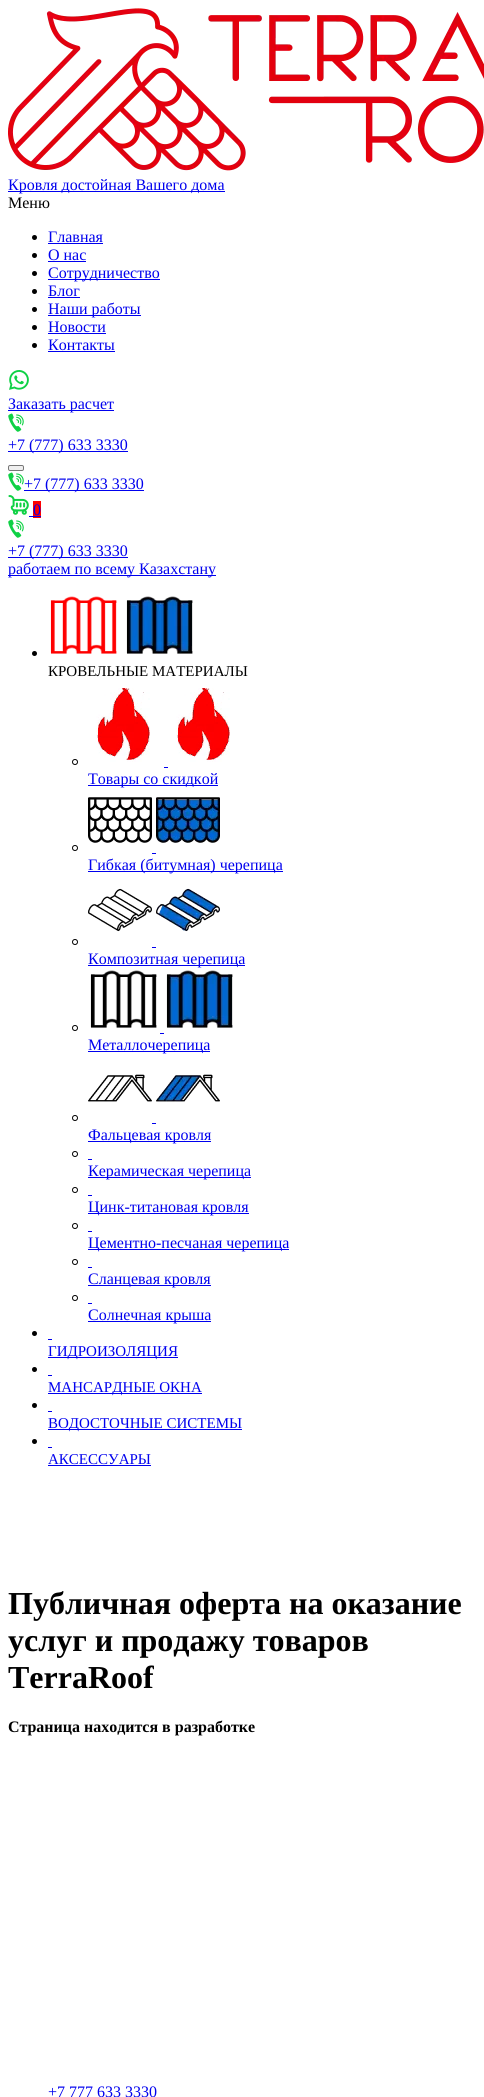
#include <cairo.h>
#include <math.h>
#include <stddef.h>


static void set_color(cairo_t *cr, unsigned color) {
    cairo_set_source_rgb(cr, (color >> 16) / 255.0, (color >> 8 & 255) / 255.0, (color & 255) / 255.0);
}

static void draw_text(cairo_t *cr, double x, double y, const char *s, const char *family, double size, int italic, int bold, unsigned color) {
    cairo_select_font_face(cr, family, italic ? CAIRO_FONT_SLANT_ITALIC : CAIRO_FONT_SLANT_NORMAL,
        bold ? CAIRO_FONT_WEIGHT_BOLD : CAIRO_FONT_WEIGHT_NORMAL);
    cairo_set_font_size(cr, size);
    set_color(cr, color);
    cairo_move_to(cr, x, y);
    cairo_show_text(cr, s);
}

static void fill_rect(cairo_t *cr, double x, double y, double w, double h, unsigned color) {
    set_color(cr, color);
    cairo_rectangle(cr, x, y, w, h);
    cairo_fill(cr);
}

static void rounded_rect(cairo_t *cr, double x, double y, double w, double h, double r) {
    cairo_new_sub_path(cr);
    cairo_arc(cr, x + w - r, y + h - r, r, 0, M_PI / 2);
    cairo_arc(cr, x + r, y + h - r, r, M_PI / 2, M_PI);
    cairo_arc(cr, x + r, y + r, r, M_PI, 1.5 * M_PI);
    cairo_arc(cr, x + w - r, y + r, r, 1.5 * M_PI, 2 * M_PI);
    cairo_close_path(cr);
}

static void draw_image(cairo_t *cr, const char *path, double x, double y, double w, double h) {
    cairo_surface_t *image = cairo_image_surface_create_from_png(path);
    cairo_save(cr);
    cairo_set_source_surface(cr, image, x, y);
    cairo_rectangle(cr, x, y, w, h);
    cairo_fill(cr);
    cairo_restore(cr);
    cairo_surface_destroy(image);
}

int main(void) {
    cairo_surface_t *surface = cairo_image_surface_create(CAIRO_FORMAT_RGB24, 484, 2097);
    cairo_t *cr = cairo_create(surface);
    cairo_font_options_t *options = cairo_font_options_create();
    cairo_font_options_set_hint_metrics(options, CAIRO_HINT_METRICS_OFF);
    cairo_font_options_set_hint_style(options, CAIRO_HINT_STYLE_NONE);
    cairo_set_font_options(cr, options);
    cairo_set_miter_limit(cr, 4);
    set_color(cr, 0xFFFFFF);
    cairo_paint(cr);
    draw_image(cr, "assets/img1.png", 8, 8, 476, 163);
    fill_rect(cr, 8, 191, 217, 1, 0x0000EE);
    draw_text(cr, 8, 190, "Кровля достойная Вашего дома", "Liberation Serif", 16, 0, 0, 0x0000EE);
    draw_text(cr, 8, 208, "Меню", "Liberation Serif", 16, 0, 0, 0x000000);
    cairo_new_path(cr);
    cairo_arc(cr, 34.5, 237.5, 2.5, 0, 2 * M_PI);
    cairo_fill(cr);
    draw_text(cr, 48, 242, "Главная", "Liberation Serif", 16, 0, 0, 0x0000EE);
    fill_rect(cr, 48, 243, 55, 1, 0x0000EE);
    set_color(cr, 0x000000);
    cairo_new_path(cr);
    cairo_arc(cr, 34.5, 255.5, 2.5, 0, 2 * M_PI);
    cairo_fill(cr);
    draw_text(cr, 48, 260, "О нас", "Liberation Serif", 16, 0, 0, 0x0000EE);
    fill_rect(cr, 48, 261, 38, 1, 0x0000EE);
    set_color(cr, 0x000000);
    cairo_new_path(cr);
    cairo_arc(cr, 34.5, 273.5, 2.5, 0, 2 * M_PI);
    cairo_fill(cr);
    fill_rect(cr, 48, 279, 112, 1, 0x0000EE);
    draw_text(cr, 48, 278, "Сотрудничество", "Liberation Serif", 16, 0, 0, 0x0000EE);
    set_color(cr, 0x000000);
    cairo_new_path(cr);
    cairo_arc(cr, 34.5, 291.5, 2.5, 0, 2 * M_PI);
    cairo_fill(cr);
    draw_text(cr, 48, 296, "Блог", "Liberation Serif", 16, 0, 0, 0x0000EE);
    fill_rect(cr, 48, 297, 32, 1, 0x0000EE);
    set_color(cr, 0x000000);
    cairo_new_path(cr);
    cairo_arc(cr, 34.5, 309.5, 2.5, 0, 2 * M_PI);
    cairo_fill(cr);
    fill_rect(cr, 48, 315, 93, 1, 0x0000EE);
    draw_text(cr, 48, 314, "Наши работы", "Liberation Serif", 16, 0, 0, 0x0000EE);
    set_color(cr, 0x000000);
    cairo_new_path(cr);
    cairo_arc(cr, 34.5, 327.5, 2.5, 0, 2 * M_PI);
    cairo_fill(cr);
    draw_text(cr, 48, 332, "Новости", "Liberation Serif", 16, 0, 0, 0x0000EE);
    fill_rect(cr, 48, 333, 58, 1, 0x0000EE);
    set_color(cr, 0x000000);
    cairo_new_path(cr);
    cairo_arc(cr, 34.5, 345.5, 2.5, 0, 2 * M_PI);
    cairo_fill(cr);
    draw_text(cr, 48, 350, "Контакты", "Liberation Serif", 16, 0, 0, 0x0000EE);
    fill_rect(cr, 48, 351, 67, 1, 0x0000EE);
    draw_image(cr, "assets/img2.png", 9, 370, 20, 20);
    fill_rect(cr, 8, 410, 106, 1, 0x0000EE);
    draw_text(cr, 8, 409, "Заказать расчет", "Liberation Serif", 16, 0, 0, 0x0000EE);
    draw_image(cr, "assets/img3.png", 8, 413, 16, 19);
    fill_rect(cr, 8, 451, 120, 1, 0x0000EE);
    draw_text(cr, 8, 450, "+7 (777) 633 3330", "Liberation Serif", 16, 0, 0, 0x0000EE);
    set_color(cr, 0xEFEFEF);
    rounded_rect(cr, 8.5, 465.5, 15, 5, 1.5);
    cairo_fill_preserve(cr);
    set_color(cr, 0x767676);
    cairo_set_line_width(cr, 1);
    cairo_stroke(cr);
    draw_image(cr, "assets/img3.png", 8, 472, 16, 19);
    fill_rect(cr, 24, 490, 120, 1, 0x0000EE);
    draw_text(cr, 24, 489, "+7 (777) 633 3330", "Liberation Serif", 16, 0, 0, 0x0000EE);
    draw_image(cr, "assets/img4.png", 8, 495, 21, 20);
    fill_rect(cr, 33, 501, 8, 17, 0xFF0000);
    draw_text(cr, 33, 515, "0", "Liberation Serif", 16, 0, 0, 0x0000EE);
    fill_rect(cr, 29, 516, 4, 1, 0x0000EE);
    fill_rect(cr, 33, 516, 8, 1, 0x0000EE);
    draw_image(cr, "assets/img3.png", 8, 519, 16, 19);
    fill_rect(cr, 8, 557, 120, 1, 0x0000EE);
    draw_text(cr, 8, 556, "+7 (777) 633 3330", "Liberation Serif", 16, 0, 0, 0x0000EE);
    fill_rect(cr, 8, 575, 208, 1, 0x0000EE);
    draw_text(cr, 8, 574, "работаем по всему Казахстану", "Liberation Serif", 16, 0, 0, 0x0000EE);
    set_color(cr, 0x000000);
    cairo_new_path(cr);
    cairo_arc(cr, 34.5, 653.5, 2.5, 0, 2 * M_PI);
    cairo_fill(cr);
    draw_image(cr, "assets/img5.png", 50, 596, 67, 58);
    draw_image(cr, "assets/img6.png", 126, 596, 67, 58);
    draw_text(cr, 48, 676, "КРОВЕЛЬНЫЕ МАТЕРИАЛЫ", "Liberation Serif", 15, 0, 0, 0x000000);
    cairo_new_path(cr);
    cairo_arc(cr, 75, 762, 2.5, 0, 2 * M_PI);
    cairo_stroke(cr);
    draw_image(cr, "assets/img7.png", 96, 688, 54, 74);
    draw_image(cr, "assets/img7.png", 176, 688, 54, 74);
    fill_rect(cr, 164, 767, 4, 1, 0x0000EE);
    fill_rect(cr, 88, 785, 130, 1, 0x0000EE);
    draw_text(cr, 88, 784, "Товары со скидкой", "Liberation Serif", 16, 0, 0, 0x0000EE);
    cairo_new_path(cr);
    cairo_arc(cr, 75, 848, 2.5, 0, 2 * M_PI);
    set_color(cr, 0x000000);
    cairo_stroke(cr);
    draw_image(cr, "assets/img8.png", 88, 797, 64, 46);
    draw_image(cr, "assets/img9.png", 156, 797, 64, 46);
    fill_rect(cr, 152, 853, 4, 1, 0x0000EE);
    fill_rect(cr, 88, 871, 195, 1, 0x0000EE);
    draw_text(cr, 88, 870, "Гибкая (битумная) черепица", "Liberation Serif", 16, 0, 0, 0x0000EE);
    cairo_new_path(cr);
    cairo_arc(cr, 75, 942, 2.5, 0, 2 * M_PI);
    set_color(cr, 0x000000);
    cairo_stroke(cr);
    draw_image(cr, "assets/img10.png", 88, 888, 64, 44);
    draw_image(cr, "assets/img11.png", 156, 888, 64, 44);
    fill_rect(cr, 152, 947, 4, 1, 0x0000EE);
    fill_rect(cr, 88, 965, 157, 1, 0x0000EE);
    draw_text(cr, 88, 964, "Композитная черепица", "Liberation Serif", 16, 0, 0, 0x0000EE);
    cairo_new_path(cr);
    cairo_arc(cr, 75, 1028, 2.5, 0, 2 * M_PI);
    set_color(cr, 0x000000);
    cairo_stroke(cr);
    draw_image(cr, "assets/img12.png", 90, 970, 67, 58);
    draw_image(cr, "assets/img6.png", 166, 970, 67, 58);
    fill_rect(cr, 160, 1033, 4, 1, 0x0000EE);
    fill_rect(cr, 88, 1051, 122, 1, 0x0000EE);
    draw_text(cr, 88, 1050, "Металлочерепица", "Liberation Serif", 16, 0, 0, 0x0000EE);
    cairo_new_path(cr);
    cairo_arc(cr, 75, 1118, 2.5, 0, 2 * M_PI);
    set_color(cr, 0x000000);
    cairo_stroke(cr);
    draw_image(cr, "assets/img13.png", 88, 1074, 64, 28);
    draw_image(cr, "assets/img14.png", 156, 1074, 64, 28);
    fill_rect(cr, 152, 1123, 4, 1, 0x0000EE);
    fill_rect(cr, 88, 1141, 123, 1, 0x0000EE);
    draw_text(cr, 88, 1140, "Фальцевая кровля", "Liberation Serif", 16, 0, 0, 0x0000EE);
    cairo_new_path(cr);
    cairo_arc(cr, 75, 1154, 2.5, 0, 2 * M_PI);
    set_color(cr, 0x000000);
    cairo_stroke(cr);
    fill_rect(cr, 88, 1159, 4, 1, 0x0000EE);
    fill_rect(cr, 88, 1177, 163, 1, 0x0000EE);
    draw_text(cr, 88, 1176, "Керамическая черепица", "Liberation Serif", 16, 0, 0, 0x0000EE);
    cairo_new_path(cr);
    cairo_arc(cr, 75, 1190, 2.5, 0, 2 * M_PI);
    set_color(cr, 0x000000);
    cairo_stroke(cr);
    fill_rect(cr, 88, 1195, 4, 1, 0x0000EE);
    fill_rect(cr, 88, 1213, 161, 1, 0x0000EE);
    draw_text(cr, 88, 1212, "Цинк-титановая кровля", "Liberation Serif", 16, 0, 0, 0x0000EE);
    cairo_new_path(cr);
    cairo_arc(cr, 75, 1226, 2.5, 0, 2 * M_PI);
    set_color(cr, 0x000000);
    cairo_stroke(cr);
    fill_rect(cr, 88, 1231, 4, 1, 0x0000EE);
    fill_rect(cr, 88, 1249, 201, 1, 0x0000EE);
    draw_text(cr, 88, 1248, "Цементно-песчаная черепица", "Liberation Serif", 16, 0, 0, 0x0000EE);
    cairo_new_path(cr);
    cairo_arc(cr, 75, 1262, 2.5, 0, 2 * M_PI);
    set_color(cr, 0x000000);
    cairo_stroke(cr);
    fill_rect(cr, 88, 1267, 4, 1, 0x0000EE);
    fill_rect(cr, 88, 1285, 123, 1, 0x0000EE);
    draw_text(cr, 88, 1284, "Сланцевая кровля", "Liberation Serif", 16, 0, 0, 0x0000EE);
    cairo_new_path(cr);
    cairo_arc(cr, 75, 1298, 2.5, 0, 2 * M_PI);
    set_color(cr, 0x000000);
    cairo_stroke(cr);
    fill_rect(cr, 88, 1303, 4, 1, 0x0000EE);
    fill_rect(cr, 88, 1321, 123, 1, 0x0000EE);
    draw_text(cr, 88, 1320, "Солнечная крыша", "Liberation Serif", 16, 0, 0, 0x0000EE);
    set_color(cr, 0x000000);
    cairo_new_path(cr);
    cairo_arc(cr, 34.5, 1333.5, 2.5, 0, 2 * M_PI);
    cairo_fill(cr);
    fill_rect(cr, 48, 1339, 4, 1, 0x0000EE);
    fill_rect(cr, 48, 1357, 130, 1, 0x0000EE);
    draw_text(cr, 48, 1356, "ГИДРОИЗОЛЯЦИЯ", "Liberation Serif", 15, 0, 0, 0x0000EE);
    set_color(cr, 0x000000);
    cairo_new_path(cr);
    cairo_arc(cr, 34.5, 1369.5, 2.5, 0, 2 * M_PI);
    cairo_fill(cr);
    fill_rect(cr, 48, 1375, 4, 1, 0x0000EE);
    fill_rect(cr, 48, 1393, 154, 1, 0x0000EE);
    draw_text(cr, 48, 1392, "МАНСАРДНЫЕ ОКНА", "Liberation Serif", 15, 0, 0, 0x0000EE);
    set_color(cr, 0x000000);
    cairo_new_path(cr);
    cairo_arc(cr, 34.5, 1405.5, 2.5, 0, 2 * M_PI);
    cairo_fill(cr);
    fill_rect(cr, 48, 1411, 4, 1, 0x0000EE);
    fill_rect(cr, 48, 1429, 194, 1, 0x0000EE);
    draw_text(cr, 48, 1428, "ВОДОСТОЧНЫЕ СИСТЕМЫ", "Liberation Serif", 15, 0, 0, 0x0000EE);
    set_color(cr, 0x000000);
    cairo_new_path(cr);
    cairo_arc(cr, 34.5, 1441.5, 2.5, 0, 2 * M_PI);
    cairo_fill(cr);
    fill_rect(cr, 48, 1447, 4, 1, 0x0000EE);
    draw_text(cr, 48, 1464, "АКСЕССУАРЫ", "Liberation Serif", 15, 0, 0, 0x0000EE);
    fill_rect(cr, 48, 1465, 103, 1, 0x0000EE);
    draw_text(cr, 8, 1614, "Публичная оферта на оказание", "Liberation Serif", 32, 0, 1, 0x000000);
    draw_text(cr, 8, 1651, "услуг и продажу товаров", "Liberation Serif", 32, 0, 1, 0x000000);
    draw_text(cr, 8, 1688, "TerraRoof", "Liberation Serif", 32, 0, 1, 0x000000);
    draw_text(cr, 8, 1732, "Страница находится в разработке", "Liberation Serif", 16, 0, 1, 0x000000);
    draw_text(cr, 48, 2097, "+7 777 633 3330", "Liberation Serif", 16, 0, 0, 0x0000EE);
    cairo_surface_write_to_png(surface, "output.png");
    cairo_font_options_destroy(options);
    cairo_destroy(cr);
    cairo_surface_destroy(surface);
    return 0;
}
